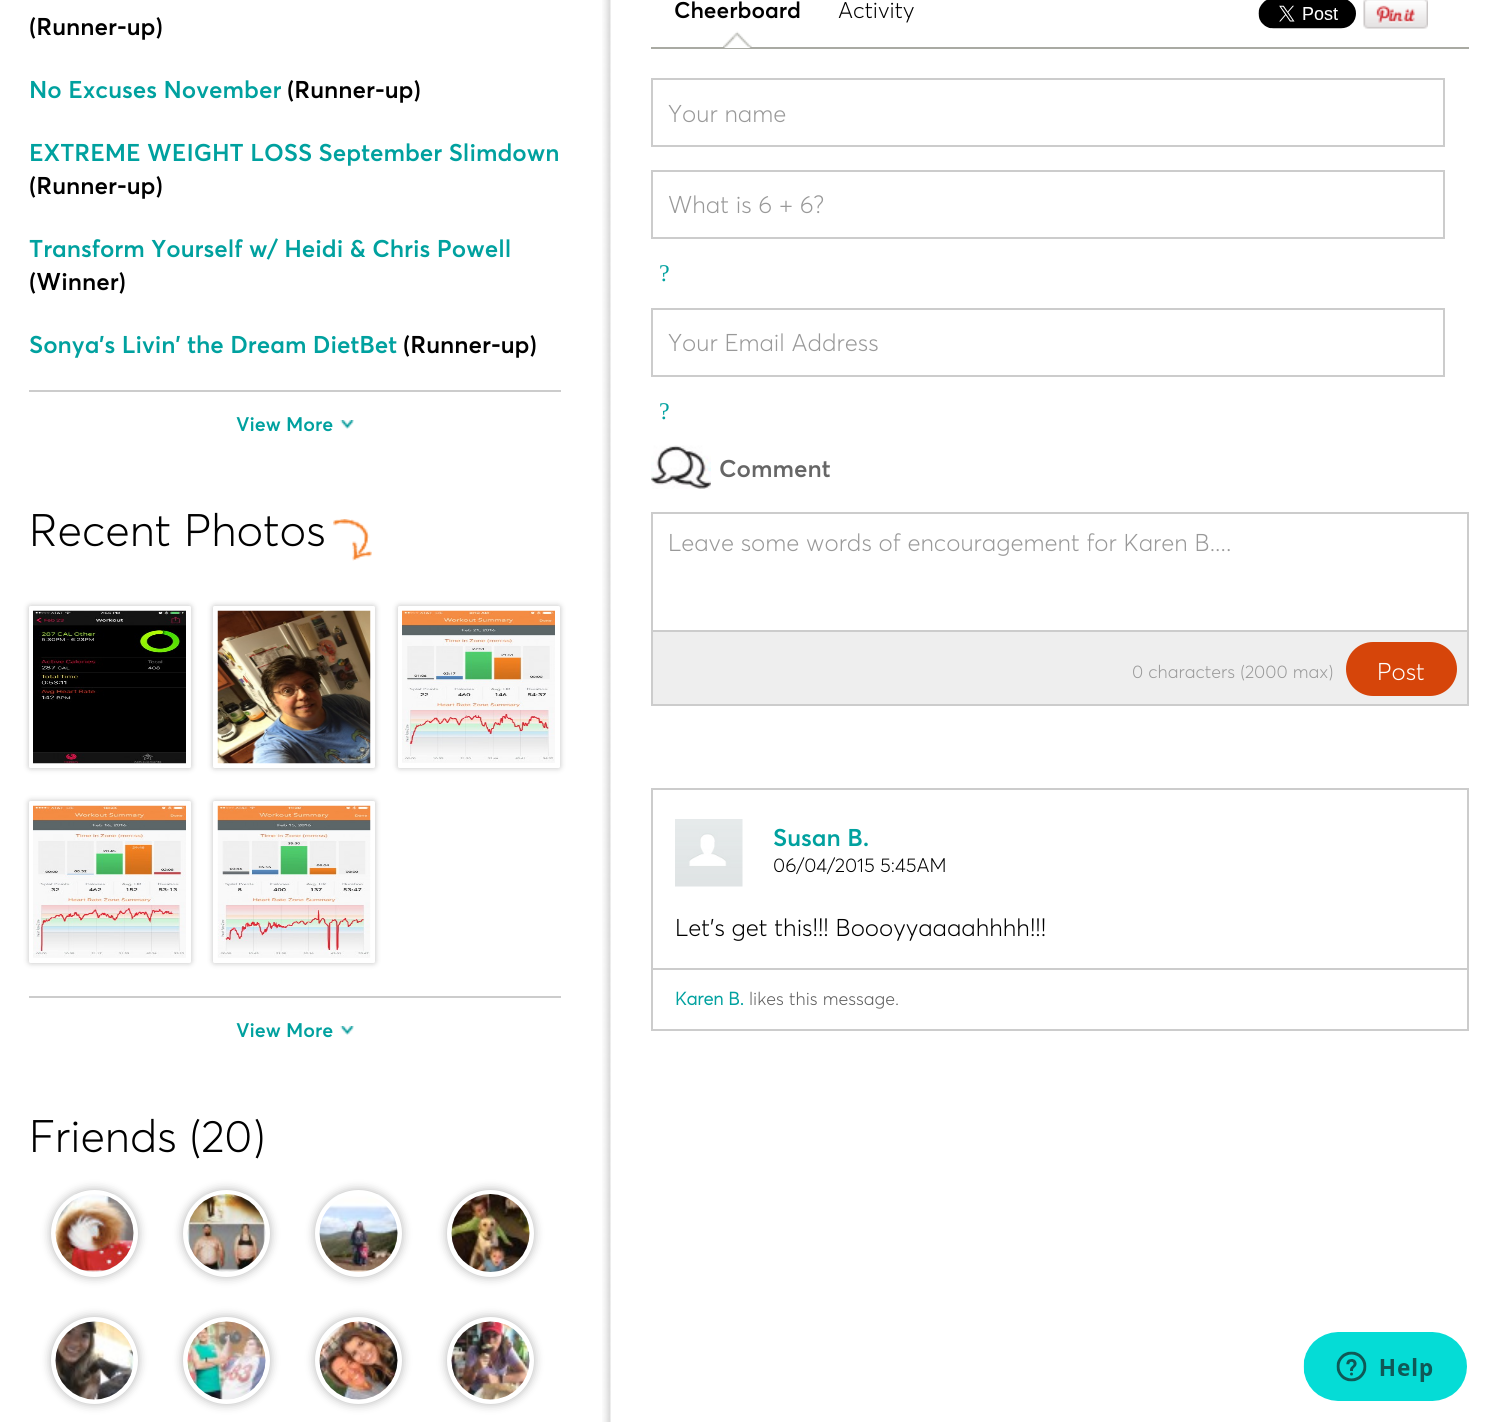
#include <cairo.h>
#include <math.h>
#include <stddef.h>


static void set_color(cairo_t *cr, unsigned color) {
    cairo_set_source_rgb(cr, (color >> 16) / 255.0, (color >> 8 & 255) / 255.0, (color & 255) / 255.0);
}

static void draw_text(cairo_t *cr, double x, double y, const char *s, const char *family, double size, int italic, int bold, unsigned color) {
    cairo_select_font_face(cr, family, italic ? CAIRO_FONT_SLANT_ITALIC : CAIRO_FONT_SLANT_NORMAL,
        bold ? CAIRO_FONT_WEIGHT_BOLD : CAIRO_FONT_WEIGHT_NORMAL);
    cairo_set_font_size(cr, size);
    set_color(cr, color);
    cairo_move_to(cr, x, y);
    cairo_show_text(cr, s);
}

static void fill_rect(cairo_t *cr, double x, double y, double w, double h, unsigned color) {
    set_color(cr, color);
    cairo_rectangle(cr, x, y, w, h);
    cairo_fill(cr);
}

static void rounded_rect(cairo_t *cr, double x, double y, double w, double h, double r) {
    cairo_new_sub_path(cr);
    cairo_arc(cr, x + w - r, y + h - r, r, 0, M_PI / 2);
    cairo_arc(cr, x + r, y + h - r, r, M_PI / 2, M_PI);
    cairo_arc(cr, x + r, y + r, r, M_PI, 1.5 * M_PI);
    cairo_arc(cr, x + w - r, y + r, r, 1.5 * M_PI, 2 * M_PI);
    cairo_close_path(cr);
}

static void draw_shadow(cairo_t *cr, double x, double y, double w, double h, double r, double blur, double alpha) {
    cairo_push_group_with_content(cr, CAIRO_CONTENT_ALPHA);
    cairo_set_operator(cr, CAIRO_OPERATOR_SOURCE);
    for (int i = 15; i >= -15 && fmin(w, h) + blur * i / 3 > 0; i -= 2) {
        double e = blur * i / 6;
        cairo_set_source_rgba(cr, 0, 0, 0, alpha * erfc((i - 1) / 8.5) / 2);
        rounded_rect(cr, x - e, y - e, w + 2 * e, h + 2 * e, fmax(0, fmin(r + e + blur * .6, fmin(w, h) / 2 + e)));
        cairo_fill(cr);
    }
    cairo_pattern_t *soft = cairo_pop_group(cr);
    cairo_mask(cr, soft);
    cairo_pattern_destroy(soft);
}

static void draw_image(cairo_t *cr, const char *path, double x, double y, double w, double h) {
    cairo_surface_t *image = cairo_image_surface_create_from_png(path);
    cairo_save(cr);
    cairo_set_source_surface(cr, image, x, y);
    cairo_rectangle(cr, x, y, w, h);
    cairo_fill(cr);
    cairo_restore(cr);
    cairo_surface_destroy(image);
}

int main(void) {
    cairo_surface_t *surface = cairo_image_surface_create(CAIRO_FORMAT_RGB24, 1497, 1422);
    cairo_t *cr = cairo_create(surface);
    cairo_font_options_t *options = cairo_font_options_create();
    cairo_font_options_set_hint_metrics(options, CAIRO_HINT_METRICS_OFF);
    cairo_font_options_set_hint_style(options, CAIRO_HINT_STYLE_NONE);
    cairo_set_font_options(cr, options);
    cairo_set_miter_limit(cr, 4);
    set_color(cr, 0xFFFFFF);
    cairo_paint(cr);
    draw_text(cr, 29, 35, "(Runner-up)", "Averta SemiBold", 24, 0, 0, 0x000000);
    draw_text(cr, 29, 98, "No Excuses November", "Averta SemiBold", 24, 0, 0, 0x00A19F);
    draw_text(cr, 287, 98, "(Runner-up)", "Averta SemiBold", 24, 0, 0, 0x000000);
    draw_text(cr, 29, 161, "EXTREME WEIGHT LOSS September Slimdown", "Averta SemiBold", 24, 0, 0, 0x00A19F);
    draw_text(cr, 29, 194, "(Runner-up)", "Averta SemiBold", 24, 0, 0, 0x000000);
    draw_text(cr, 29, 257, "Transform Yourself w/ Heidi & Chris Powell", "Averta SemiBold", 24, 0, 0, 0x00A19F);
    draw_text(cr, 29, 290, "(Winner)", "Averta SemiBold", 24, 0, 0, 0x000000);
    draw_text(cr, 29, 353, "Sonya's Livin' the Dream DietBet", "Averta SemiBold", 24, 0, 0, 0x00A19F);
    draw_text(cr, 403, 353, "(Runner-up)", "Averta SemiBold", 24, 0, 0, 0x000000);
    fill_rect(cr, 29, 390, 532, 2, 0xCCCCCC);
    draw_text(cr, 236, 431, "View More", "Averta SemiBold", 19.5, 0, 0, 0x00A19F);
    draw_image(cr, "assets/img1.png", 340, 420, 14, 9);
    draw_text(cr, 29, 546, "Recent Photos", "Averta Light", 45, 0, 0, 0x000000);
    draw_image(cr, "assets/img2.png", 333, 519, 39, 42);
    set_color(cr, 0x000000);
    draw_shadow(cr, 29, 606, 162, 162, 1.5, 3, 0.25);
    set_color(cr, 0xFFFFFF);
    rounded_rect(cr, 29, 606, 162, 162, 1.5);
    cairo_fill(cr);
    draw_image(cr, "assets/img3.png", 33, 610, 153, 154);
    set_color(cr, 0x000000);
    draw_shadow(cr, 213, 606, 162, 162, 1.5, 3, 0.25);
    set_color(cr, 0xFFFFFF);
    rounded_rect(cr, 213, 606, 162, 162, 1.5);
    cairo_fill(cr);
    draw_image(cr, "assets/img4.png", 217, 610, 154, 154);
    set_color(cr, 0x000000);
    draw_shadow(cr, 398, 606, 162, 162, 1.5, 3, 0.25);
    set_color(cr, 0xFFFFFF);
    rounded_rect(cr, 398, 606, 162, 162, 1.5);
    cairo_fill(cr);
    draw_image(cr, "assets/img5.png", 402, 610, 153, 153);
    set_color(cr, 0x000000);
    draw_shadow(cr, 29, 801, 162, 162, 1.5, 3, 0.25);
    set_color(cr, 0xFFFFFF);
    rounded_rect(cr, 29, 801, 162, 162, 1.5);
    cairo_fill(cr);
    draw_image(cr, "assets/img6.png", 33, 805, 153, 153);
    set_color(cr, 0x000000);
    draw_shadow(cr, 213, 801, 162, 162, 1.5, 3, 0.25);
    set_color(cr, 0xFFFFFF);
    rounded_rect(cr, 213, 801, 162, 162, 1.5);
    cairo_fill(cr);
    draw_image(cr, "assets/img7.png", 217, 805, 154, 153);
    fill_rect(cr, 29, 996, 532, 2, 0xCCCCCC);
    draw_text(cr, 236, 1037, "View More", "Averta SemiBold", 19.5, 0, 0, 0x00A19F);
    draw_image(cr, "assets/img1.png", 340, 1026, 14, 9);
    draw_text(cr, 29, 1152, "Friends (20)", "Averta Light", 45, 0, 0, 0x000000);
    set_color(cr, 0x000000);
    draw_shadow(cr, 51, 1190, 87, 87, 43.5, 5, 0.3);
    draw_image(cr, "assets/img8.png", 55, 1194, 79, 78);
    cairo_arc(cr, 94.5, 1233.5, 41, 0, 2 * M_PI);
    set_color(cr, 0xFFFFFF);
    cairo_set_line_width(cr, 5);
    cairo_stroke(cr);
    draw_image(cr, "assets/img9.png", 55, 1194, 79, 78);
    set_color(cr, 0x000000);
    draw_shadow(cr, 183, 1190, 87, 87, 43.5, 5, 0.3);
    draw_image(cr, "assets/img10.png", 187, 1194, 79, 78);
    cairo_arc(cr, 226.5, 1233.5, 41, 0, 2 * M_PI);
    set_color(cr, 0xFFFFFF);
    cairo_stroke(cr);
    draw_image(cr, "assets/img11.png", 187, 1194, 79, 78);
    set_color(cr, 0x000000);
    draw_shadow(cr, 315, 1190, 87, 87, 43.5, 5, 0.3);
    draw_image(cr, "assets/img8.png", 319, 1194, 79, 78);
    cairo_arc(cr, 358.5, 1233.5, 41, 0, 2 * M_PI);
    set_color(cr, 0xFFFFFF);
    cairo_stroke(cr);
    draw_image(cr, "assets/img12.png", 319, 1195, 79, 77);
    set_color(cr, 0x000000);
    draw_shadow(cr, 447, 1190, 87, 87, 43.5, 5, 0.3);
    draw_image(cr, "assets/img13.png", 451, 1194, 79, 78);
    cairo_arc(cr, 490.5, 1233.5, 41, 0, 2 * M_PI);
    set_color(cr, 0xFFFFFF);
    cairo_stroke(cr);
    draw_image(cr, "assets/img14.png", 451, 1194, 79, 78);
    set_color(cr, 0x000000);
    draw_shadow(cr, 51, 1317, 87, 87, 43.5, 5, 0.3);
    draw_image(cr, "assets/img15.png", 55, 1321, 79, 79);
    cairo_arc(cr, 94.5, 1360.5, 41, 0, 2 * M_PI);
    set_color(cr, 0xFFFFFF);
    cairo_stroke(cr);
    draw_image(cr, "assets/img16.png", 55, 1321, 79, 79);
    set_color(cr, 0x000000);
    draw_shadow(cr, 183, 1317, 87, 87, 43.5, 5, 0.3);
    draw_image(cr, "assets/img17.png", 187, 1321, 79, 79);
    cairo_arc(cr, 226.5, 1360.5, 41, 0, 2 * M_PI);
    set_color(cr, 0xFFFFFF);
    cairo_stroke(cr);
    draw_image(cr, "assets/img18.png", 187, 1321, 79, 79);
    set_color(cr, 0x000000);
    draw_shadow(cr, 315, 1317, 87, 87, 43.5, 5, 0.3);
    draw_image(cr, "assets/img15.png", 319, 1321, 79, 79);
    cairo_arc(cr, 358.5, 1360.5, 41, 0, 2 * M_PI);
    set_color(cr, 0xFFFFFF);
    cairo_stroke(cr);
    draw_image(cr, "assets/img19.png", 319, 1321, 79, 79);
    set_color(cr, 0x000000);
    draw_shadow(cr, 447, 1317, 87, 87, 43.5, 5, 0.3);
    draw_image(cr, "assets/img20.png", 451, 1321, 79, 79);
    cairo_arc(cr, 490.5, 1360.5, 41, 0, 2 * M_PI);
    set_color(cr, 0xFFFFFF);
    cairo_stroke(cr);
    draw_image(cr, "assets/img21.png", 451, 1321, 79, 79);
    draw_image(cr, "assets/img22.png", 602, 0, 9, 1422);
    fill_rect(cr, 651, 47, 818, 2, 0xA9AAA3);
    draw_image(cr, "assets/img23.png", 723, 31, 29, 17);
    draw_text(cr, 674, 18, "Cheerboard", "Averta SemiBold", 22.5, 0, 0, 0x000000);
    draw_text(cr, 838, 18, "Activity", "Averta Light", 22.5, 0, 0, 0x000000);
    draw_image(cr, "assets/img24.png", 1258, 0, 98, 29);
    draw_image(cr, "assets/img25.png", 1363, 0, 65, 29);
    cairo_rectangle(cr, 652, 79, 792, 67);
    set_color(cr, 0xCCCCCC);
    cairo_set_line_width(cr, 2);
    cairo_stroke(cr);
    draw_text(cr, 668, 122, "Your name", "Averta Light", 24, 0, 0, 0x999999);
    cairo_rectangle(cr, 652, 171, 792, 67);
    set_color(cr, 0xCCCCCC);
    cairo_stroke(cr);
    draw_text(cr, 668, 213, "What is 6 + 6?", "Averta Light", 24, 0, 0, 0x999999);
    draw_text(cr, 659, 281, "?", "Liberation Serif", 24, 0, 0, 0x00A19F);
    cairo_rectangle(cr, 652, 309, 792, 67);
    set_color(cr, 0xCCCCCC);
    cairo_stroke(cr);
    draw_text(cr, 668, 351, "Your Email Address", "Averta Light", 24, 0, 0, 0x999999);
    draw_text(cr, 659, 419, "?", "Liberation Serif", 24, 0, 0, 0x00A19F);
    draw_image(cr, "assets/img26.png", 651, 445, 60, 44);
    draw_text(cr, 719, 477, "Comment", "Averta SemiBold", 24, 0, 0, 0x666666);
    cairo_rectangle(cr, 652, 513, 816, 118);
    set_color(cr, 0xCCCCCC);
    cairo_stroke(cr);
    draw_text(cr, 668, 551, "Leave some words of encouragement for Karen B....", "Averta Light", 24, 0, 0, 0x999999);
    fill_rect(cr, 653, 632, 814, 72, 0xEEEEEE);
    draw_text(cr, 1132, 678, "0 characters (2000 max)", "Averta Light", 18, 0, 0, 0x999999);
    fill_rect(cr, 1467, 632, 2, 73, 0xCCCCCC);
    fill_rect(cr, 651, 704, 818, 2, 0xCCCCCC);
    fill_rect(cr, 651, 632, 2, 73, 0xCCCCCC);
    set_color(cr, 0xD6450A);
    rounded_rect(cr, 1347, 643, 109, 52, 26);
    cairo_fill_preserve(cr);
    cairo_stroke(cr);
    draw_text(cr, 1377, 680, "Post", "Averta Light", 24, 0, 0, 0xFFFFFF);
    cairo_rectangle(cr, 652, 789, 816, 241);
    set_color(cr, 0xCCCCCC);
    cairo_stroke(cr);
    draw_image(cr, "assets/img27.png", 675, 819, 68, 68);
    draw_text(cr, 773, 846, "Susan B.", "Averta SemiBold", 24, 0, 0, 0x00A19F);
    draw_text(cr, 773, 872, "06/04/2015 5:45AM", "Averta Light", 19.5, 0, 0, 0x000000);
    draw_text(cr, 675, 936, "Let's get this!!! Boooyyaaaahhhh!!!", "Averta Light", 24, 0, 0, 0x000000);
    cairo_rectangle(cr, 652, 969, 816, 61);
    set_color(cr, 0xCCCCCC);
    cairo_stroke(cr);
    draw_text(cr, 675, 1005, "Karen B.", "Averta", 18, 0, 1, 0x00A19F);
    draw_text(cr, 749, 1005, "likes this message.", "Averta Light", 18, 0, 0, 0x5B5B5B);
    draw_image(cr, "assets/img28.png", 1303, 1332, 164, 69);
    cairo_surface_write_to_png(surface, "output.png");
    cairo_font_options_destroy(options);
    cairo_destroy(cr);
    cairo_surface_destroy(surface);
    return 0;
}
